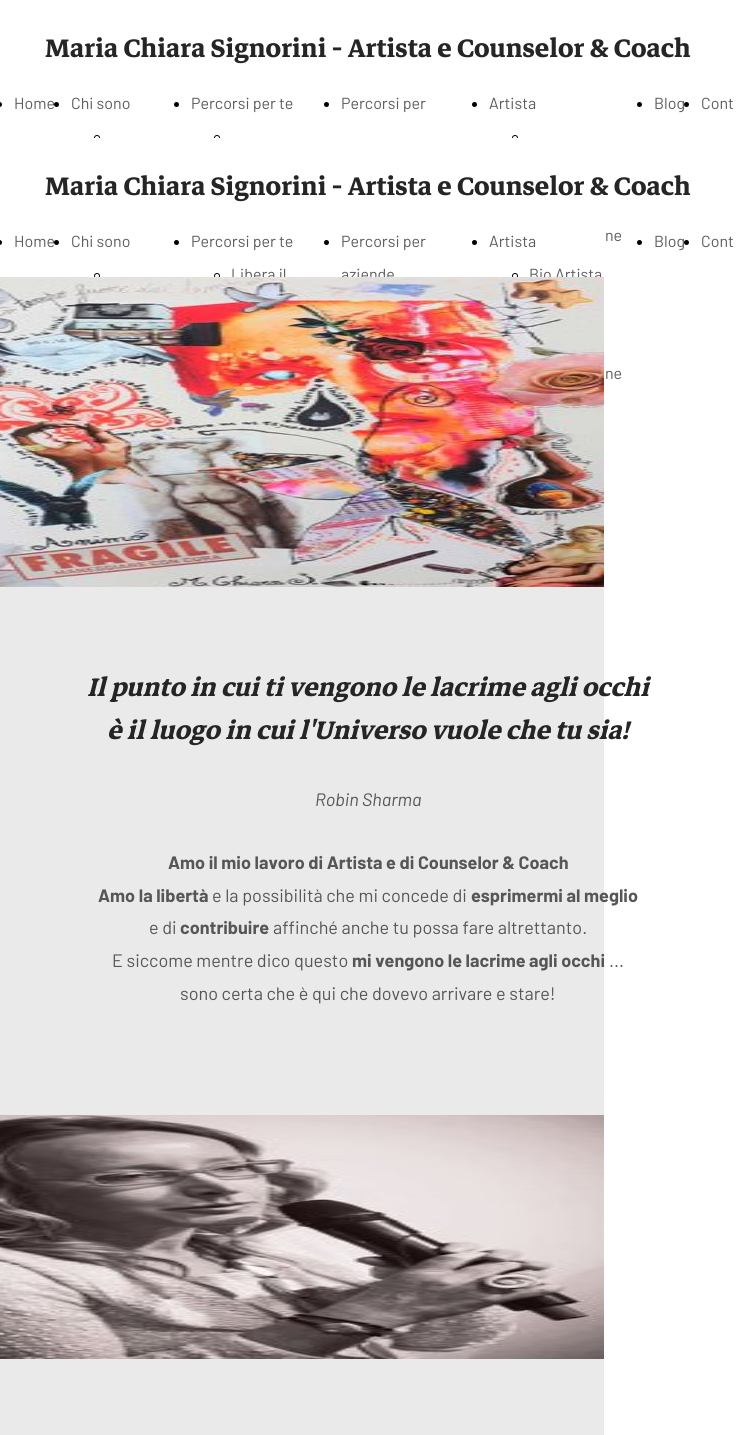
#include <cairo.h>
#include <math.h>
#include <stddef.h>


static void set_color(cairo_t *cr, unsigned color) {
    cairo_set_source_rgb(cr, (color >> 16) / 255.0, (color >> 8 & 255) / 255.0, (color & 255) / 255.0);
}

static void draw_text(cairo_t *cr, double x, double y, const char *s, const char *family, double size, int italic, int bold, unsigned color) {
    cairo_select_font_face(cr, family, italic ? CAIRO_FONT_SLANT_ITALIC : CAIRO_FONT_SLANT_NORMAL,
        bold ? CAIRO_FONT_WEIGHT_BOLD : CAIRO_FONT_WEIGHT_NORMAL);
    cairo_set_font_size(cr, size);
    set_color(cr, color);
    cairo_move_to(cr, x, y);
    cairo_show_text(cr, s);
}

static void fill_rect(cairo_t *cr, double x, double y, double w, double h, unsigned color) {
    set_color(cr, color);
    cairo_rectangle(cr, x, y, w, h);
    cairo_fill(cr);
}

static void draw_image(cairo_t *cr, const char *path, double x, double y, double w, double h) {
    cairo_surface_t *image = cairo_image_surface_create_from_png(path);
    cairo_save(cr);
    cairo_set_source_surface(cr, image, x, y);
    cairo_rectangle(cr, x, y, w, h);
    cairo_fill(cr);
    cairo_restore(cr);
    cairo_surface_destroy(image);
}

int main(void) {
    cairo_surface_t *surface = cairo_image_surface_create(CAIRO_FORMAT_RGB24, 736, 1435);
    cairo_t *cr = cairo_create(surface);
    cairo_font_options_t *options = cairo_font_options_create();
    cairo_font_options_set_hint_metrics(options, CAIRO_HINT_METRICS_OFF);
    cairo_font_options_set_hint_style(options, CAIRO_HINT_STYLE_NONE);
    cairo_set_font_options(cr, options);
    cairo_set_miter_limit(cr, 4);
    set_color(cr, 0xFFFFFF);
    cairo_paint(cr);
    draw_text(cr, 45, 57, "Maria Chiara Signorini - Artista e Counselor & Coach", "Markazi Text", 36.1, 0, 1, 0x252525);
    set_color(cr, 0x000000);
    cairo_new_path(cr);
    cairo_move_to(cr, 0, 102);
    cairo_line_to(cr, -0.5, 102);
    cairo_curve_to(cr, 1, 102, 2, 103, 2, 104.5);
    cairo_curve_to(cr, 2, 106, 1, 107, -0.5, 107);
    cairo_line_to(cr, 0, 107);
    cairo_close_path(cr);
    cairo_fill(cr);
    draw_text(cr, 14, 109, "Home", "Barlow", 16, 0, 0, 0x5C5C5C);
    set_color(cr, 0x000000);
    cairo_new_path(cr);
    cairo_arc(cr, 56.5, 104.5, 2.5, 0, 2 * M_PI);
    cairo_fill(cr);
    draw_text(cr, 71, 109, "Chi sono", "Barlow", 16, 0, 0, 0x5C5C5C);
    cairo_new_path(cr);
    cairo_arc(cr, 97, 138, 2.5, 0, 2 * M_PI);
    set_color(cr, 0x000000);
    cairo_set_line_width(cr, 1);
    cairo_stroke(cr);
    cairo_arc(cr, 176.5, 104.5, 2.5, 0, 2 * M_PI);
    cairo_fill(cr);
    draw_text(cr, 191, 109, "Percorsi per te", "Barlow", 16, 0, 0, 0x5C5C5C);
    cairo_new_path(cr);
    cairo_arc(cr, 217, 138, 2.5, 0, 2 * M_PI);
    set_color(cr, 0x000000);
    cairo_stroke(cr);
    cairo_arc(cr, 326.5, 104.5, 2.5, 0, 2 * M_PI);
    cairo_fill(cr);
    draw_text(cr, 341, 109, "Percorsi per", "Barlow", 16, 0, 0, 0x5C5C5C);
    set_color(cr, 0x000000);
    cairo_new_path(cr);
    cairo_arc(cr, 474.5, 104.5, 2.5, 0, 2 * M_PI);
    cairo_fill(cr);
    draw_text(cr, 489, 109, "Artista", "Barlow", 16, 0, 0, 0x5C5C5C);
    cairo_new_path(cr);
    cairo_arc(cr, 515, 138, 2.5, 0, 2 * M_PI);
    set_color(cr, 0x000000);
    cairo_stroke(cr);
    draw_text(cr, 605, 241, "ne", "Barlow", 16, 0, 0, 0x5C5C5C);
    set_color(cr, 0x000000);
    cairo_new_path(cr);
    cairo_arc(cr, 639.5, 104.5, 2.5, 0, 2 * M_PI);
    cairo_fill(cr);
    draw_text(cr, 654, 109, "Blog", "Barlow", 16, 0, 0, 0x5C5C5C);
    set_color(cr, 0x000000);
    cairo_new_path(cr);
    cairo_arc(cr, 686.5, 104.5, 2.5, 0, 2 * M_PI);
    cairo_fill(cr);
    draw_text(cr, 701, 109, "Cont", "Barlow", 16, 0, 0, 0x5C5C5C);
    fill_rect(cr, 94, 138, 424, 3, 0xFFFFFF);
    draw_text(cr, 45, 195, "Maria Chiara Signorini - Artista e Counselor & Coach", "Markazi Text", 36.1, 0, 1, 0x252525);
    set_color(cr, 0x000000);
    cairo_new_path(cr);
    cairo_move_to(cr, 0, 240);
    cairo_line_to(cr, -0.5, 240);
    cairo_curve_to(cr, 1, 240, 2, 241, 2, 242.5);
    cairo_curve_to(cr, 2, 244, 1, 245, -0.5, 245);
    cairo_line_to(cr, 0, 245);
    cairo_close_path(cr);
    cairo_fill(cr);
    draw_text(cr, 14, 247, "Home", "Barlow", 16, 0, 0, 0x5C5C5C);
    set_color(cr, 0x000000);
    cairo_new_path(cr);
    cairo_arc(cr, 56.5, 242.5, 2.5, 0, 2 * M_PI);
    cairo_fill(cr);
    draw_text(cr, 71, 247, "Chi sono", "Barlow", 16, 0, 0, 0x5C5C5C);
    cairo_new_path(cr);
    cairo_arc(cr, 97, 276, 2.5, 0, 2 * M_PI);
    set_color(cr, 0x000000);
    cairo_stroke(cr);
    cairo_arc(cr, 176.5, 242.5, 2.5, 0, 2 * M_PI);
    cairo_fill(cr);
    draw_text(cr, 191, 247, "Percorsi per te", "Barlow", 16, 0, 0, 0x5C5C5C);
    cairo_new_path(cr);
    cairo_arc(cr, 217, 276, 2.5, 0, 2 * M_PI);
    set_color(cr, 0x000000);
    cairo_stroke(cr);
    draw_text(cr, 231, 280, "Libera il", "Barlow", 16, 0, 0, 0x5C5C5C);
    set_color(cr, 0x000000);
    cairo_new_path(cr);
    cairo_arc(cr, 326.5, 242.5, 2.5, 0, 2 * M_PI);
    cairo_fill(cr);
    draw_text(cr, 341, 247, "Percorsi per", "Barlow", 16, 0, 0, 0x5C5C5C);
    draw_text(cr, 341, 280, "aziende", "Barlow", 16, 0, 0, 0x5C5C5C);
    set_color(cr, 0x000000);
    cairo_new_path(cr);
    cairo_arc(cr, 474.5, 242.5, 2.5, 0, 2 * M_PI);
    cairo_fill(cr);
    draw_text(cr, 489, 247, "Artista", "Barlow", 16, 0, 0, 0x5C5C5C);
    cairo_new_path(cr);
    cairo_arc(cr, 515, 276, 2.5, 0, 2 * M_PI);
    set_color(cr, 0x000000);
    cairo_stroke(cr);
    draw_text(cr, 529, 280, "Bio Artista", "Barlow", 16, 0, 0, 0x5C5C5C);
    draw_text(cr, 605, 379, "ne", "Barlow", 16, 0, 0, 0x5C5C5C);
    set_color(cr, 0x000000);
    cairo_new_path(cr);
    cairo_arc(cr, 639.5, 242.5, 2.5, 0, 2 * M_PI);
    cairo_fill(cr);
    draw_text(cr, 654, 247, "Blog", "Barlow", 16, 0, 0, 0x5C5C5C);
    set_color(cr, 0x000000);
    cairo_new_path(cr);
    cairo_arc(cr, 686.5, 242.5, 2.5, 0, 2 * M_PI);
    cairo_fill(cr);
    draw_text(cr, 701, 247, "Cont", "Barlow", 16, 0, 0, 0x5C5C5C);
    draw_image(cr, "assets/img1.png", 0, 277, 604, 310);
    fill_rect(cr, 0, 587, 604, 528, 0xEAEAEA);
    draw_text(cr, 87, 696, "Il punto in cui ti vengono le lacrime agli occhi", "Markazi Text", 36, 1, 1, 0x252525);
    draw_text(cr, 107, 739, "è il luogo in cui l'Universo vuole che tu sia!", "Markazi Text", 36, 1, 1, 0x252525);
    draw_text(cr, 315, 806, "Robin Sharma", "Barlow", 18, 1, 0, 0x565656);
    draw_text(cr, 168, 869, "Amo il mio lavoro di Artista e di Counselor & Coach", "Barlow", 18, 0, 1, 0x565656);
    draw_text(cr, 98, 902, "Amo la libertà", "Barlow", 18, 0, 1, 0x565656);
    draw_text(cr, 212, 902, "e la possibilità che mi concede di", "Barlow", 18, 0, 0, 0x565656);
    draw_text(cr, 471, 902, "esprimermi al meglio", "Barlow", 18, 0, 1, 0x565656);
    draw_text(cr, 149, 934, "e di", "Barlow", 18, 0, 0, 0x565656);
    draw_text(cr, 180, 934, "contribuire", "Barlow", 18, 0, 1, 0x565656);
    draw_text(cr, 273, 934, "affinché anche tu possa fare altrettanto.", "Barlow", 18, 0, 0, 0x565656);
    draw_text(cr, 112, 967, "E siccome mentre dico questo", "Barlow", 18, 0, 0, 0x565656);
    draw_text(cr, 352, 967, "mi vengono le lacrime agli occhi", "Barlow", 18, 0, 1, 0x565656);
    draw_text(cr, 609, 967, "...", "Barlow", 18, 0, 0, 0x565656);
    draw_text(cr, 180, 1000, "sono certa che è qui che dovevo arrivare e stare!", "Barlow", 18, 0, 0, 0x565656);
    draw_image(cr, "assets/img2.png", 0, 1115, 604, 244);
    fill_rect(cr, 0, 1359, 604, 76, 0xEAEAEA);
    cairo_surface_write_to_png(surface, "output.png");
    cairo_font_options_destroy(options);
    cairo_destroy(cr);
    cairo_surface_destroy(surface);
    return 0;
}
